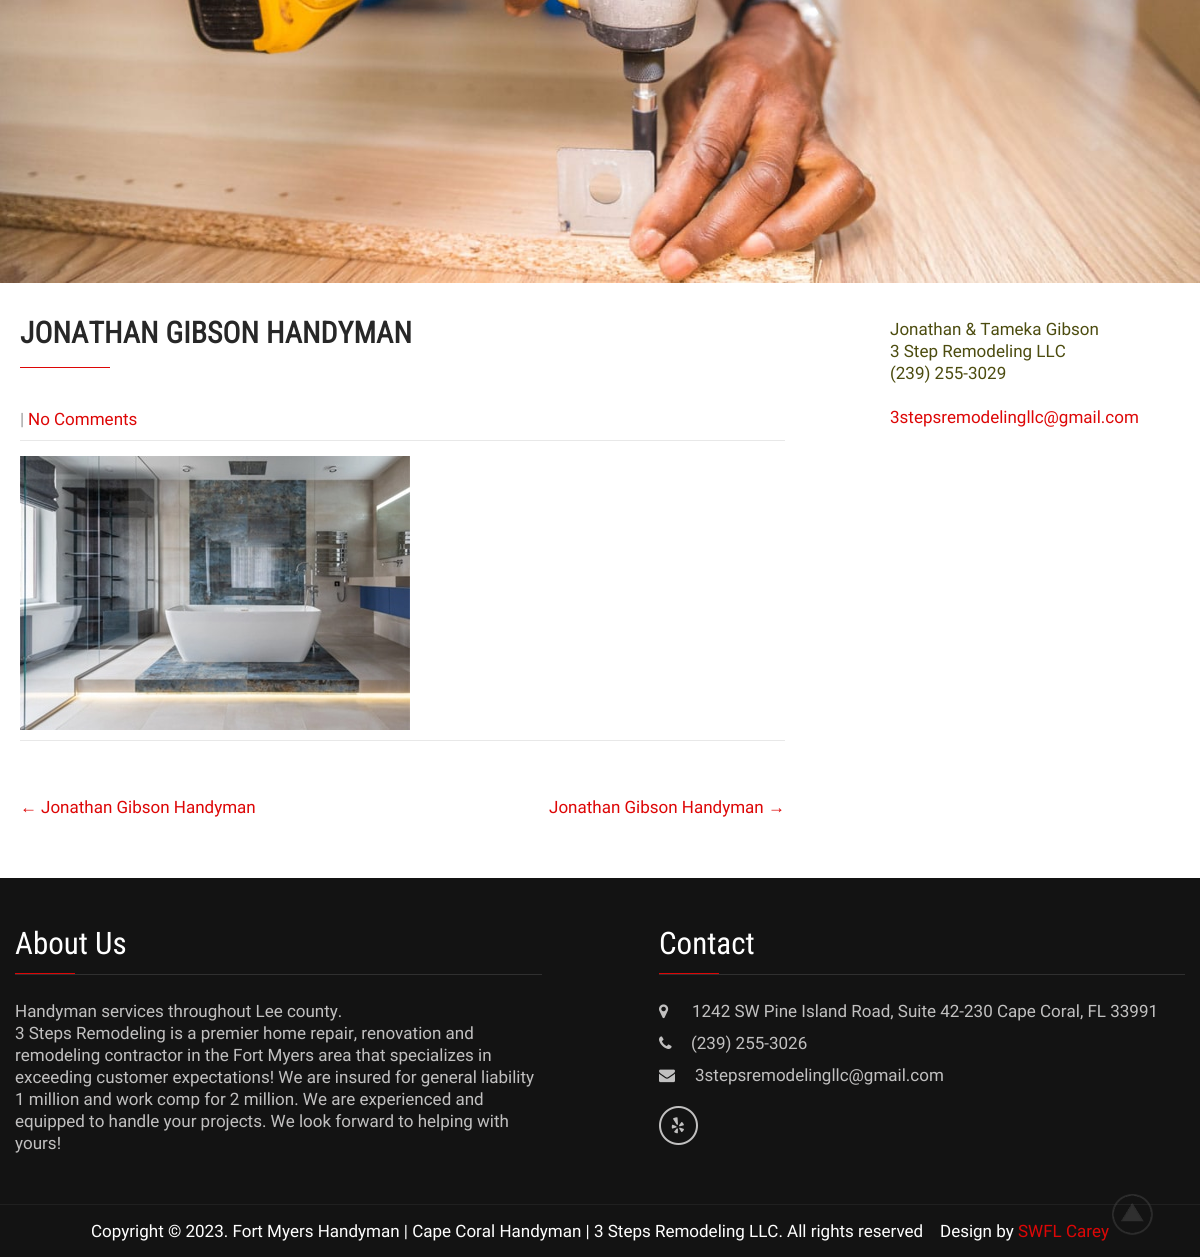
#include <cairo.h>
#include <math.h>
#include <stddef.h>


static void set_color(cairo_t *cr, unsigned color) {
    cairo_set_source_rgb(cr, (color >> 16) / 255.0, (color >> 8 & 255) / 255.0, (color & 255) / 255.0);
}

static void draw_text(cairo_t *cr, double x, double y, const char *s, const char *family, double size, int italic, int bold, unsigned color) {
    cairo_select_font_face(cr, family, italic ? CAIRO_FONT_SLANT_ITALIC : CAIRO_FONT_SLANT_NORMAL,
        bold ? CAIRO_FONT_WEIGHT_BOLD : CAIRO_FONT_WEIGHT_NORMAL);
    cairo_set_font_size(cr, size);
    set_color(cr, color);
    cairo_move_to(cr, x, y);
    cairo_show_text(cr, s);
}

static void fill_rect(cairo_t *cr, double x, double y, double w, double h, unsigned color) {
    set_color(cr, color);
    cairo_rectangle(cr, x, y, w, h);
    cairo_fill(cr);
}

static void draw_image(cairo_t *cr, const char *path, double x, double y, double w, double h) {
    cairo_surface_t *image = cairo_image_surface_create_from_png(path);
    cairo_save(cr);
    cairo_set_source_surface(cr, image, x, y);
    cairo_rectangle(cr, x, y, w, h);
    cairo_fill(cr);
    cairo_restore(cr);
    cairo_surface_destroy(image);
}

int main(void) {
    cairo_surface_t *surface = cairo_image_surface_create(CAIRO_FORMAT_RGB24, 1200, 1257);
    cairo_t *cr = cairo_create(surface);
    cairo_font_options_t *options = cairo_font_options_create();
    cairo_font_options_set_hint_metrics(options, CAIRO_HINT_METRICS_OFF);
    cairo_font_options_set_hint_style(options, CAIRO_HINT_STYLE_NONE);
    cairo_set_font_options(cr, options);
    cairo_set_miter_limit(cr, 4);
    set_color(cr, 0xFFFFFF);
    cairo_paint(cr);
    draw_image(cr, "assets/img1.png", 0, 0, 1200, 283);
    draw_text(cr, 20, 343, "JONATHAN GIBSON HANDYMAN", "Roboto Condensed", 30, 0, 1, 0x272727);
    fill_rect(cr, 20, 367, 90, 1, 0xDD0606);
    fill_rect(cr, 20, 440, 765, 1, 0xE8E8E8);
    draw_text(cr, 20, 425, "|", "Roboto", 17, 0, 0, 0x999999);
    draw_text(cr, 28, 425, "No Comments", "Roboto", 17, 0, 0, 0xDD0606);
    draw_image(cr, "assets/img2.png", 20, 456, 390, 274);
    fill_rect(cr, 20, 740, 765, 1, 0xE8E8E8);
    draw_text(cr, 20, 813, "←", "Liberation Serif", 17, 0, 0, 0xDD0606);
    draw_text(cr, 41, 813, "Jonathan Gibson Handyman", "Roboto", 17, 0, 0, 0xDD0606);
    draw_text(cr, 549, 813, "Jonathan Gibson Handyman", "Roboto", 17, 0, 0, 0xDD0606);
    draw_text(cr, 768, 813, "→", "Liberation Serif", 17, 0, 0, 0xDD0606);
    draw_text(cr, 890, 335, "Jonathan & Tameka Gibson", "Roboto", 17, 0, 0, 0x4C4C0F);
    draw_text(cr, 890, 357, "3 Step Remodeling LLC", "Roboto", 17, 0, 0, 0x4C4C0F);
    draw_text(cr, 890, 379, "(239) 255-3029", "Roboto", 17, 0, 0, 0x4C4C0F);
    draw_text(cr, 890, 423, "3stepsremodelingllc@gmail.com", "Roboto", 17, 0, 0, 0xDD0606);
    fill_rect(cr, 0, 878, 1200, 379, 0x131313);
    fill_rect(cr, 15, 974, 527, 1, 0x303030);
    draw_text(cr, 15, 954, "About Us", "Roboto Condensed", 31, 0, 0, 0xFFFFFF);
    fill_rect(cr, 15, 973, 60, 1, 0xDD0606);
    draw_text(cr, 15, 1017, "Handyman services throughout Lee county.", "Roboto", 17, 0, 0, 0xC1C0C0);
    draw_text(cr, 15, 1039, "3 Steps Remodeling is a premier home repair, renovation and", "Roboto", 17, 0, 0, 0xC1C0C0);
    draw_text(cr, 15, 1061, "remodeling contractor in the Fort Myers area that specializes in", "Roboto", 17, 0, 0, 0xC1C0C0);
    draw_text(cr, 15, 1083, "exceeding customer expectations! We are insured for general liability", "Roboto", 17, 0, 0, 0xC1C0C0);
    draw_text(cr, 15, 1105, "1 million and work comp for 2 million. We are experienced and", "Roboto", 17, 0, 0, 0xC1C0C0);
    draw_text(cr, 15, 1127, "equipped to handle your projects. We look forward to helping with", "Roboto", 17, 0, 0, 0xC1C0C0);
    draw_text(cr, 15, 1149, "yours!", "Roboto", 17, 0, 0, 0xC1C0C0);
    fill_rect(cr, 659, 974, 526, 1, 0x303030);
    draw_text(cr, 659, 954, "Contact", "Roboto Condensed", 31, 0, 0, 0xFFFFFF);
    fill_rect(cr, 659, 973, 60, 1, 0xDD0606);
    draw_image(cr, "assets/img3.png", 659, 1004, 10, 15);
    draw_text(cr, 692, 1017, "1242 SW Pine Island Road, Suite 42-230 Cape Coral, FL 33991", "Roboto", 17, 0, 0, 0xC1C0C0);
    draw_image(cr, "assets/img4.png", 659, 1036, 13, 13);
    draw_text(cr, 691, 1049, "(239) 255-3026", "Roboto", 17, 0, 0, 0xC1C0C0);
    draw_image(cr, "assets/img5.png", 659, 1069, 16, 14);
    draw_text(cr, 695, 1081, "3stepsremodelingllc@gmail.com", "Roboto", 17, 0, 0, 0xC1C0C0);
    cairo_new_path(cr);
    cairo_arc(cr, 678.5, 1125.5, 18.5, 0, 2 * M_PI);
    cairo_stroke(cr);
    draw_image(cr, "assets/img6.png", 671, 1117, 13, 17);
    fill_rect(cr, 0, 1204, 1200, 1, 0x202020);
    draw_text(cr, 91, 1237, "Copyright © 2023. Fort Myers Handyman | Cape Coral Handyman | 3 Steps Remodeling LLC. All rights reserved", "Roboto", 17, 0, 0, 0xFFFFFF);
    draw_text(cr, 940, 1237, "Design by", "Roboto", 17, 0, 0, 0xFFFFFF);
    draw_text(cr, 1018, 1237, "SWFL Carey", "Roboto", 17, 0, 0, 0xDD0606);
    draw_image(cr, "assets/img7.png", 1112, 1194, 41, 41);
    cairo_surface_write_to_png(surface, "output.png");
    cairo_font_options_destroy(options);
    cairo_destroy(cr);
    cairo_surface_destroy(surface);
    return 0;
}
